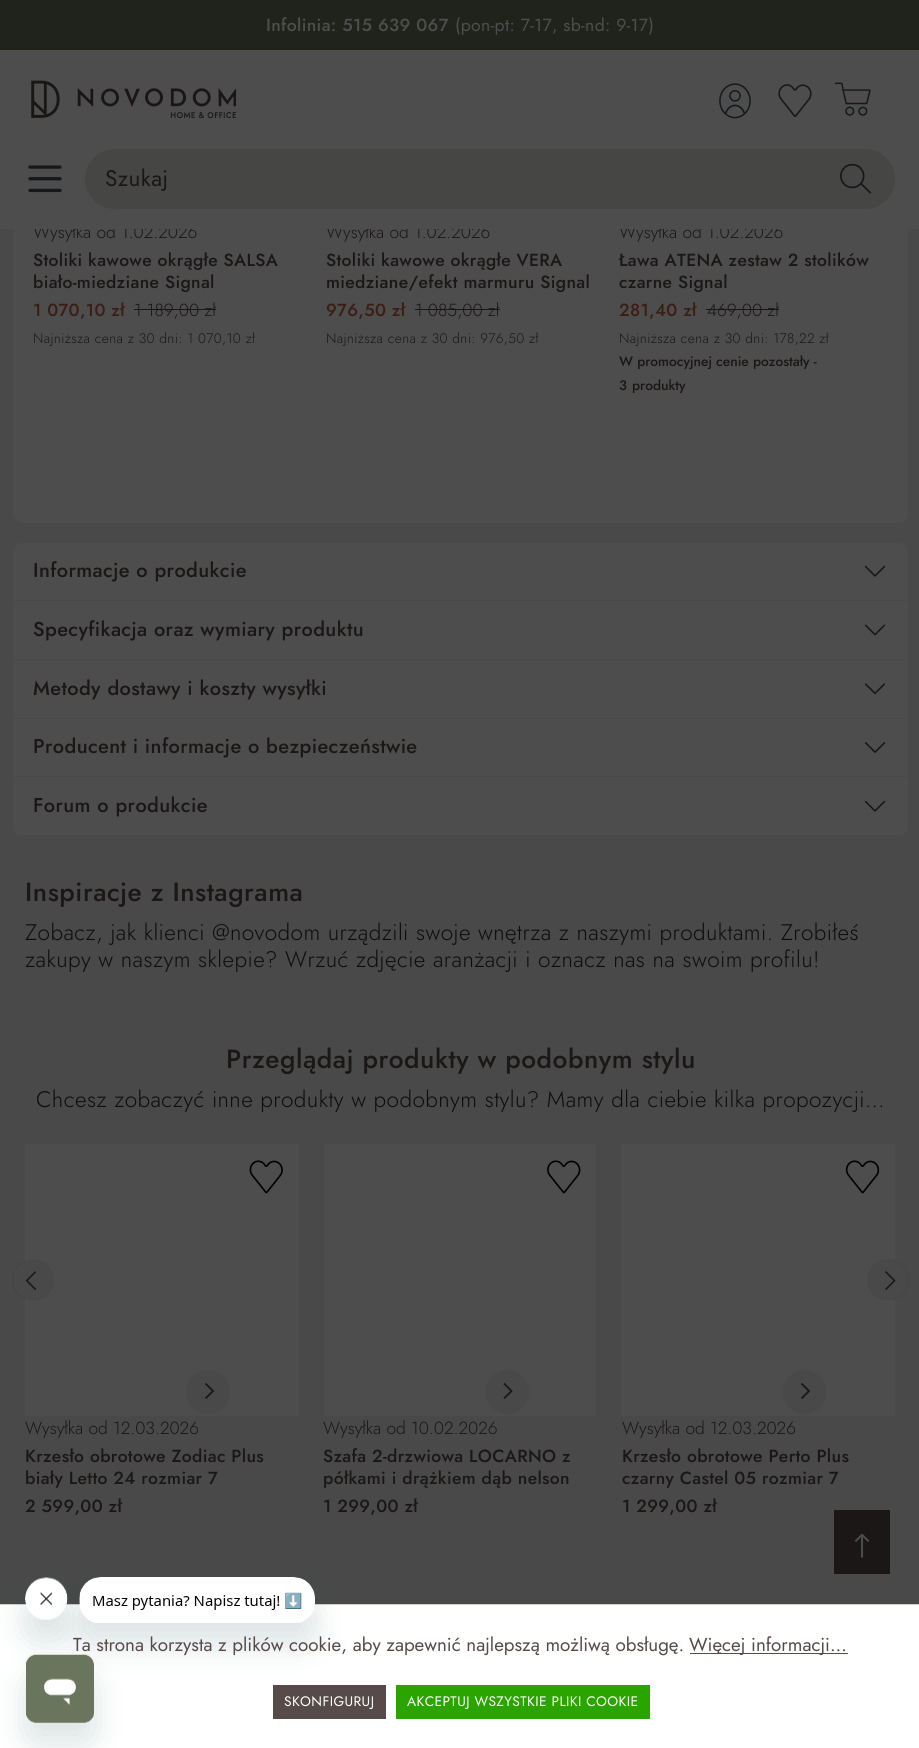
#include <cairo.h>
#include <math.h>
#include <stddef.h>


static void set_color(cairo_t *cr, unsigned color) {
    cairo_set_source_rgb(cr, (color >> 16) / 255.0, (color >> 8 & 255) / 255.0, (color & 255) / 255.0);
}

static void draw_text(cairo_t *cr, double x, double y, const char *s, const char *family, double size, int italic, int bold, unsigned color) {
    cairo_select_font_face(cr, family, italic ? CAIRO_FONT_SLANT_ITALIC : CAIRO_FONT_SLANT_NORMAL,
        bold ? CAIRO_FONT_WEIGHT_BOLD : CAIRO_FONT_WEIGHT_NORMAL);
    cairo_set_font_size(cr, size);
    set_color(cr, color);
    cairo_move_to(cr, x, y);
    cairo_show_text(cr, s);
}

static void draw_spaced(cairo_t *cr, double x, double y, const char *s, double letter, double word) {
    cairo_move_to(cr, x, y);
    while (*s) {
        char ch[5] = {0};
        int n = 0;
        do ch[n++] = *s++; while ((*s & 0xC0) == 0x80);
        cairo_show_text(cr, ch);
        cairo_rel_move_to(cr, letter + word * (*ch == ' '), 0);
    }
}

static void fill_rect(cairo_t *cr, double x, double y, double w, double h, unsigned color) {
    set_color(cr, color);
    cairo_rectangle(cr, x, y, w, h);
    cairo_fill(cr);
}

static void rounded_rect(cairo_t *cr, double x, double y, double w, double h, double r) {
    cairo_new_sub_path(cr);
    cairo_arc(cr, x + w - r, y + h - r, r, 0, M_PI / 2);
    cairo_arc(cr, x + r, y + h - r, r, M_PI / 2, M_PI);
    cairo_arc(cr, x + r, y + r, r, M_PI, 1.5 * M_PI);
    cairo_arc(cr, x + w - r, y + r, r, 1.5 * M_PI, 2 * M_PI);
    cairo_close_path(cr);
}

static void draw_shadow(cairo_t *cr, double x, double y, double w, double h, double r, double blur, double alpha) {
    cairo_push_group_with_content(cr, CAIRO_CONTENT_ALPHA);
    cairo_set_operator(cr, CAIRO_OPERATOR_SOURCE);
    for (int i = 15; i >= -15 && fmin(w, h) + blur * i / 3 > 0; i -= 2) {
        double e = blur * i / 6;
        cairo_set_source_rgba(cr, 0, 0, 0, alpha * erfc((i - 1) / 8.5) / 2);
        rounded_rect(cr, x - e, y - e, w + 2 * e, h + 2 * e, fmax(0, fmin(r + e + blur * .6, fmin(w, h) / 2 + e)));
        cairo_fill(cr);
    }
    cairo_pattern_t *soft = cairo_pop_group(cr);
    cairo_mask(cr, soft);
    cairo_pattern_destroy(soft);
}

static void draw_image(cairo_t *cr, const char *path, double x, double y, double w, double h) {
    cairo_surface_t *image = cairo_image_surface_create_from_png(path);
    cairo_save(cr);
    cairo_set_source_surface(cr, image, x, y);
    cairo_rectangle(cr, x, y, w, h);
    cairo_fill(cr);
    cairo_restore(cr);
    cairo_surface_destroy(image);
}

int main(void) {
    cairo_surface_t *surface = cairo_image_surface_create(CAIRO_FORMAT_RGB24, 919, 1748);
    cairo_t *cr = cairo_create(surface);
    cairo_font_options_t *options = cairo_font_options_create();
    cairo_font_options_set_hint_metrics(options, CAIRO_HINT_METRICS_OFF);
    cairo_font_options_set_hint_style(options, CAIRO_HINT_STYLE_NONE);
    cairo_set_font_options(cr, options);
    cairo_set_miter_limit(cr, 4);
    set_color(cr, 0x494949);
    cairo_paint(cr);
    set_color(cr, 0x4D4D4D);
    rounded_rect(cr, 13, -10, 895, 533, 10);
    cairo_fill(cr);
    fill_rect(cr, 0, 0, 919, 50, 0x20231C);
    cairo_select_font_face(cr, "Jost Medium", CAIRO_FONT_SLANT_NORMAL, CAIRO_FONT_WEIGHT_NORMAL);
    cairo_set_font_size(cr, 17.5);
    set_color(cr, 0x4D4D4D);
    draw_spaced(cr, 266, 31, "Infolinia: 515 639 067", 0.35, 0);
    cairo_select_font_face(cr, "Jost", CAIRO_FONT_SLANT_NORMAL, CAIRO_FONT_WEIGHT_NORMAL);
    draw_spaced(cr, 455, 31, "(pon-pt: 7-17, sb-nd: 9-17)", 0.35, 0);
    draw_text(cr, 33, 238, "Wysyłka od 1.02.2026", "Jost Light", 17.5, 0, 0, 0x1A1716);
    draw_text(cr, 326, 238, "Wysyłka od 1.02.2026", "Jost Light", 17.5, 0, 0, 0x1A1716);
    draw_text(cr, 619, 238, "Wysyłka od 1.02.2026", "Jost Light", 17.5, 0, 0, 0x1A1716);
    fill_rect(cr, 0, 50, 919, 179, 0x4D4D4D);
    draw_image(cr, "assets/img1.png", 31, 80, 205, 39);
    draw_image(cr, "assets/img2.png", 719, 83, 32, 36);
    draw_image(cr, "assets/img3.png", 778, 84, 34, 34);
    draw_image(cr, "assets/img4.png", 835, 82, 36, 34);
    draw_image(cr, "assets/img5.png", 28, 165, 34, 28);
    set_color(cr, 0x464645);
    rounded_rect(cr, 85, 149, 810, 60, 30);
    cairo_fill(cr);
    cairo_select_font_face(cr, "Jost", CAIRO_FONT_SLANT_NORMAL, CAIRO_FONT_WEIGHT_NORMAL);
    cairo_set_font_size(cr, 22.5);
    set_color(cr, 0x1A1716);
    draw_spaced(cr, 105, 186, "Szukaj", 0.45, 0);
    draw_image(cr, "assets/img6.png", 840, 163, 32, 31);
    cairo_select_font_face(cr, "Jost Medium", CAIRO_FONT_SLANT_NORMAL, CAIRO_FONT_WEIGHT_NORMAL);
    cairo_set_font_size(cr, 17.5);
    draw_spaced(cr, 33, 266, "Stoliki kawowe okrągłe SALSA", 0.35, 0);
    draw_spaced(cr, 33, 288, "biało-miedziane Signal", 0.35, 0);
    set_color(cr, 0x3B1D13);
    draw_spaced(cr, 33, 316, "1 070,10 zł", 0.35, 0);
    draw_text(cr, 134, 316, "1 189,00 zł", "Jost Light", 17.5, 0, 0, 0x1A1716);
    fill_rect(cr, 134, 309, 82, 1, 0x1A1716);
    cairo_set_font_size(cr, 13.75);
    draw_spaced(cr, 33, 343, "Najniższa cena z 30 dni: 1 070,10 zł", 0.35, 0);
    cairo_select_font_face(cr, "Jost Medium", CAIRO_FONT_SLANT_NORMAL, CAIRO_FONT_WEIGHT_NORMAL);
    cairo_set_font_size(cr, 17.5);
    draw_spaced(cr, 326, 266, "Stoliki kawowe okrągłe VERA", 0.35, 0);
    draw_spaced(cr, 326, 288, "miedziane/efekt marmuru Signal", 0.35, 0);
    set_color(cr, 0x3B1D13);
    draw_spaced(cr, 326, 316, "976,50 zł", 0.35, 0);
    draw_text(cr, 415, 316, "1 085,00 zł", "Jost Light", 17.5, 0, 0, 0x1A1716);
    fill_rect(cr, 415, 309, 85, 1, 0x1A1716);
    cairo_set_font_size(cr, 13.75);
    draw_spaced(cr, 326, 343, "Najniższa cena z 30 dni: 976,50 zł", 0.35, 0);
    cairo_select_font_face(cr, "Jost Medium", CAIRO_FONT_SLANT_NORMAL, CAIRO_FONT_WEIGHT_NORMAL);
    cairo_set_font_size(cr, 17.5);
    draw_spaced(cr, 619, 266, "Ława ATENA zestaw 2 stolików", 0.35, 0);
    draw_spaced(cr, 619, 288, "czarne Signal", 0.35, 0);
    set_color(cr, 0x3B1D13);
    draw_spaced(cr, 619, 316, "281,40 zł", 0.35, 0);
    draw_text(cr, 707, 316, "469,00 zł", "Jost Light", 17.5, 0, 0, 0x1A1716);
    fill_rect(cr, 706, 309, 73, 1, 0x1A1716);
    cairo_set_font_size(cr, 13.75);
    draw_spaced(cr, 619, 343, "Najniższa cena z 30 dni: 178,22 zł", 0.35, 0);
    draw_text(cr, 619, 366, "W promocyjnej cenie pozostały -", "Jost Medium", 13.75, 0, 0, 0x1A1716);
    draw_text(cr, 619, 390, "3", "Jost Medium", 13.75, 0, 0, 0x1A1716);
    draw_text(cr, 632, 390, "produkty", "Jost Medium", 13.75, 0, 0, 0x1A1716);
    set_color(cr, 0x4D4D4D);
    cairo_new_path(cr);
    cairo_move_to(cr, 23, 543);
    cairo_line_to(cr, 898, 543);
    cairo_curve_to(cr, 903.5, 543, 908, 547.5, 908, 553);
    cairo_line_to(cr, 908, 600);
    cairo_line_to(cr, 13, 600);
    cairo_line_to(cr, 13, 553);
    cairo_curve_to(cr, 13, 547.5, 17.5, 543, 23, 543);
    cairo_close_path(cr);
    cairo_fill(cr);
    cairo_set_font_size(cr, 20);
    set_color(cr, 0x1A1716);
    draw_spaced(cr, 33, 577, "Informacje o produkcie", 0.4, 0);
    draw_image(cr, "assets/img7.png", 864, 565, 22, 12);
    fill_rect(cr, 13, 601, 895, 58, 0x4D4D4D);
    set_color(cr, 0x1A1716);
    draw_spaced(cr, 33, 636, "Specyfikacja oraz wymiary produktu", 0.4, 0);
    draw_image(cr, "assets/img8.png", 864, 624, 22, 12);
    fill_rect(cr, 13, 660, 895, 58, 0x4D4D4D);
    set_color(cr, 0x1A1716);
    draw_spaced(cr, 33, 695, "Metody dostawy i koszty wysyłki", 0.4, 0);
    draw_image(cr, "assets/img9.png", 864, 683, 22, 12);
    fill_rect(cr, 13, 719, 895, 59, 0x4D4D4D);
    fill_rect(cr, 13, 776, 895, 1, 0x494949);
    set_color(cr, 0x1A1716);
    draw_spaced(cr, 33, 753, "Producent i informacje o bezpieczeństwie", 0.4, 0);
    draw_image(cr, "assets/img10.png", 864, 742, 22, 11);
    set_color(cr, 0x4D4D4D);
    cairo_new_path(cr);
    cairo_move_to(cr, 13, 778);
    cairo_line_to(cr, 908, 778);
    cairo_line_to(cr, 908, 826);
    cairo_curve_to(cr, 908, 831.5, 903.5, 836, 898, 836);
    cairo_line_to(cr, 23, 836);
    cairo_curve_to(cr, 17.5, 836, 13, 831.5, 13, 826);
    cairo_close_path(cr);
    cairo_fill(cr);
    fill_rect(cr, 18, 835, 885, 1, 0x494949);
    set_color(cr, 0x1A1716);
    draw_spaced(cr, 33, 812, "Forum o produkcie", 0.4, 0);
    draw_image(cr, "assets/img7.png", 864, 800, 22, 12);
    cairo_set_font_size(cr, 26.25);
    draw_spaced(cr, 25, 901, "Inspiracje z Instagrama", 0.55, 0);
    cairo_select_font_face(cr, "Jost Light", CAIRO_FONT_SLANT_NORMAL, CAIRO_FONT_WEIGHT_NORMAL);
    cairo_set_font_size(cr, 22.5);
    set_color(cr, 0x0D0D0D);
    draw_spaced(cr, 25, 940, "Zobacz, jak klienci @novodom urządzili swoje wnętrza z naszymi produktami. Zrobiłeś", 0.45, 0);
    draw_spaced(cr, 25, 967, "zakupy w naszym sklepie? Wrzuć zdjęcie aranżacji i oznacz nas na swoim profilu!", 0.45, 0);
    cairo_select_font_face(cr, "Jost Medium", CAIRO_FONT_SLANT_NORMAL, CAIRO_FONT_WEIGHT_NORMAL);
    cairo_set_font_size(cr, 26.25);
    set_color(cr, 0x1A1716);
    draw_spaced(cr, 226, 1068, "Przeglądaj produkty w podobnym stylu", 0.55, 0);
    cairo_select_font_face(cr, "Jost Light", CAIRO_FONT_SLANT_NORMAL, CAIRO_FONT_WEIGHT_NORMAL);
    cairo_set_font_size(cr, 22.5);
    set_color(cr, 0x0D0D0D);
    draw_spaced(cr, 36, 1107, "Chcesz zobaczyć inne produkty w podobnym stylu? Mamy dla ciebie kilka propozycji…", 0.45, 0);
    fill_rect(cr, 25, 1144, 274, 272, 0x4D4D4D);
    set_color(cr, 0x000000);
    draw_shadow(cr, 13, 1260, 40, 40, 20, 0.5, 0.2);
    set_color(cr, 0x494949);
    cairo_arc(cr, 33, 1280, 20, 0, 2 * M_PI);
    cairo_fill(cr);
    draw_image(cr, "assets/img11.png", 26, 1271, 10, 19);
    fill_rect(cr, 621, 1144, 274, 272, 0x4D4D4D);
    set_color(cr, 0x000000);
    draw_shadow(cr, 868, 1260, 40, 40, 20, 0.5, 0.2);
    set_color(cr, 0x494949);
    cairo_arc(cr, 888, 1280, 20, 0, 2 * M_PI);
    cairo_fill(cr);
    draw_image(cr, "assets/img12.png", 885, 1271, 11, 19);
    cairo_arc(cr, 208, 1392, 22, 0, 2 * M_PI);
    cairo_fill(cr);
    cairo_new_path(cr);
    cairo_move_to(cr, 205.5, 1383.5);
    cairo_line_to(cr, 213, 1391);
    cairo_line_to(cr, 205.5, 1398.5);
    set_color(cr, 0x1A1716);
    cairo_set_line_width(cr, 1.8);
    cairo_stroke(cr);
    draw_image(cr, "assets/img13.png", 249, 1160, 34, 34);
    draw_text(cr, 25, 1434, "Wysyłka od 12.03.2026", "Jost Light", 17.5, 0, 0, 0x1A1716);
    cairo_select_font_face(cr, "Jost Medium", CAIRO_FONT_SLANT_NORMAL, CAIRO_FONT_WEIGHT_NORMAL);
    draw_spaced(cr, 25, 1462, "Krzesło obrotowe Zodiac Plus", 0.35, 0);
    draw_spaced(cr, 25, 1484, "biały Letto 24 rozmiar 7", 0.35, 0);
    draw_spaced(cr, 25, 1512, "2 599,00 zł", 0.35, 0);
    fill_rect(cr, 324, 1144, 272, 272, 0x4D4D4D);
    set_color(cr, 0x494949);
    cairo_new_path(cr);
    cairo_arc(cr, 507, 1392, 22, 0, 2 * M_PI);
    cairo_fill(cr);
    cairo_new_path(cr);
    cairo_move_to(cr, 504, 1383.5);
    cairo_line_to(cr, 511.5, 1391);
    cairo_line_to(cr, 504, 1398.5);
    set_color(cr, 0x1A1716);
    cairo_stroke(cr);
    draw_image(cr, "assets/img14.png", 547, 1160, 34, 34);
    draw_text(cr, 323, 1434, "Wysyłka od 10.02.2026", "Jost Light", 17.5, 0, 0, 0x1A1716);
    cairo_select_font_face(cr, "Jost Medium", CAIRO_FONT_SLANT_NORMAL, CAIRO_FONT_WEIGHT_NORMAL);
    draw_spaced(cr, 323, 1462, "Szafa 2-drzwiowa LOCARNO z", 0.35, 0);
    draw_spaced(cr, 323, 1484, "półkami i drążkiem dąb nelson", 0.35, 0);
    draw_spaced(cr, 323, 1512, "1 299,00 zł", 0.35, 0);
    set_color(cr, 0x494949);
    rounded_rect(cr, 783, 1370, 43, 44, 21.5);
    cairo_fill(cr);
    cairo_new_path(cr);
    cairo_move_to(cr, 801.5, 1383.5);
    cairo_line_to(cr, 809, 1391);
    cairo_line_to(cr, 801.5, 1398.5);
    set_color(cr, 0x1A1716);
    cairo_stroke(cr);
    draw_image(cr, "assets/img15.png", 845, 1160, 35, 34);
    draw_text(cr, 622, 1434, "Wysyłka od 12.03.2026", "Jost Light", 17.5, 0, 0, 0x1A1716);
    cairo_select_font_face(cr, "Jost Medium", CAIRO_FONT_SLANT_NORMAL, CAIRO_FONT_WEIGHT_NORMAL);
    draw_spaced(cr, 622, 1462, "Krzesło obrotowe Perto Plus", 0.35, 0);
    draw_spaced(cr, 622, 1484, "czarny Castel 05 rozmiar 7", 0.35, 0);
    draw_spaced(cr, 622, 1512, "1 299,00 zł", 0.35, 0);
    fill_rect(cr, 834, 1510, 56, 64, 0x1A1716);
    draw_image(cr, "assets/img16.png", 855, 1534, 14, 24);
    fill_rect(cr, 0, 1605, 919, 143, 0xFFFFFF);
    fill_rect(cr, 0, 1604, 919, 1, 0xD4CEC5);
    set_color(cr, 0x17494D);
    draw_shadow(cr, 25, 1599, 43, 42, 21, 16, 0.15);
    draw_image(cr, "assets/img17.png", 25, 1577, 43, 43);
    fill_rect(cr, 273, 1685, 113, 34, 0x564B48);
    set_color(cr, 0x17494D);
    draw_shadow(cr, 79, 1599, 236, 46, 21, 16, 0.15);
    draw_image(cr, "assets/img18.png", 79, 1577, 236, 46);
    draw_shadow(cr, 26, 1676, 68, 68, 11, 16, 0.15);
    draw_text(cr, 73, 1651, "Ta strona korzysta z plików cookie, aby zapewnić najlepszą możliwą obsługę.", "Jost", 18.75, 0, 0, 0x564B48);
    draw_image(cr, "assets/img19.png", 26, 1654, 68, 69);
    fill_rect(cr, 690, 1653, 158, 1, 0x564B48);
    draw_text(cr, 689, 1651, "Więcej informacji...", "Jost", 18.75, 0, 0, 0x564B48);
    cairo_set_font_size(cr, 13.75);
    set_color(cr, 0xFFFFFF);
    draw_spaced(cr, 284, 1706, "SKONFIGURUJ", 0.4, 0);
    fill_rect(cr, 396, 1685, 254, 34, 0x2AA500);
    set_color(cr, 0xFFFFFF);
    draw_spaced(cr, 407, 1706, "AKCEPTUJ WSZYSTKIE PLIKI COOKIE", 0.4, 0);
    cairo_surface_write_to_png(surface, "output.png");
    cairo_font_options_destroy(options);
    cairo_destroy(cr);
    cairo_surface_destroy(surface);
    return 0;
}
